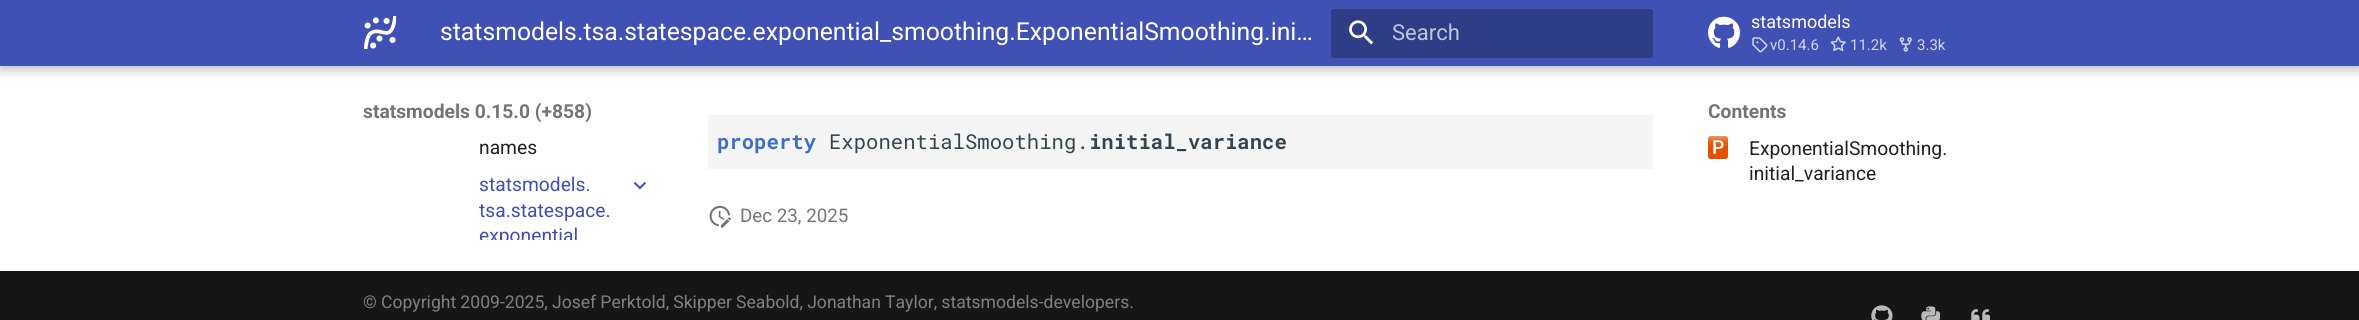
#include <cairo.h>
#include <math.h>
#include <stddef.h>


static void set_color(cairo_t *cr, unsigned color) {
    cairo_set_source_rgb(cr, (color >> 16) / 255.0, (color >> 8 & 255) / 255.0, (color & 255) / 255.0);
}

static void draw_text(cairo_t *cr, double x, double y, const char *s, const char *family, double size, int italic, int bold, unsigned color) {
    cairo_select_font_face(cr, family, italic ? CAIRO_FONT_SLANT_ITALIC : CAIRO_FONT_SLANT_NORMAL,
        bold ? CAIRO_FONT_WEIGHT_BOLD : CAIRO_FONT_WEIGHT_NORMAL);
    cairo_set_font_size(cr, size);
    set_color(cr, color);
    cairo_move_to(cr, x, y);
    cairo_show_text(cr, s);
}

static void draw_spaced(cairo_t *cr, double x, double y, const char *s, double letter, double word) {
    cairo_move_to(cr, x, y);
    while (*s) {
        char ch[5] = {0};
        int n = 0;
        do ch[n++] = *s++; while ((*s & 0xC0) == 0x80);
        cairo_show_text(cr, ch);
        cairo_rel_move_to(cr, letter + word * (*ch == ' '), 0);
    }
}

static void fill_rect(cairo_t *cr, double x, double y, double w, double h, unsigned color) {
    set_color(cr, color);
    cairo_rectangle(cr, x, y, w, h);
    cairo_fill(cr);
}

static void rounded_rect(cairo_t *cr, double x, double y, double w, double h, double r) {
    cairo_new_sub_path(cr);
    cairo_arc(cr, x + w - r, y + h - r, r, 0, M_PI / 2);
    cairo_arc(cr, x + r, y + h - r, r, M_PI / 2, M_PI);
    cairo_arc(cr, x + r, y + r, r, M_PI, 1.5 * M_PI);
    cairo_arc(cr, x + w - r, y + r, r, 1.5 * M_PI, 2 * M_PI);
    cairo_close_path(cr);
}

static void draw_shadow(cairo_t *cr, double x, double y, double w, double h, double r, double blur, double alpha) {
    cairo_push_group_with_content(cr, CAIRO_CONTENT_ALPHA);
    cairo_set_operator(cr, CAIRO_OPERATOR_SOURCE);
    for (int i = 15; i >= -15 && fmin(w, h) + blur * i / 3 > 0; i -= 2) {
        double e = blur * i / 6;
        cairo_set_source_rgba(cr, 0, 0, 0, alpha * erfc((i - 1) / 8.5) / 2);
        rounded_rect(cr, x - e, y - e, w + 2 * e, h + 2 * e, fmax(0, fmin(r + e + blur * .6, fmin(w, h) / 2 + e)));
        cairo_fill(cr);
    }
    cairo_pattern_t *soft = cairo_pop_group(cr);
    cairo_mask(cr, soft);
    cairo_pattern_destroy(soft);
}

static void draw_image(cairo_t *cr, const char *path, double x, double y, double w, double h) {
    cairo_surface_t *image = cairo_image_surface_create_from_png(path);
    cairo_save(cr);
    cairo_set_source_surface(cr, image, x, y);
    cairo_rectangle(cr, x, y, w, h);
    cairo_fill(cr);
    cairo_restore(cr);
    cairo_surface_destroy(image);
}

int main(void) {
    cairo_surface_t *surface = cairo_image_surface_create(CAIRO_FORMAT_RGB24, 2359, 320);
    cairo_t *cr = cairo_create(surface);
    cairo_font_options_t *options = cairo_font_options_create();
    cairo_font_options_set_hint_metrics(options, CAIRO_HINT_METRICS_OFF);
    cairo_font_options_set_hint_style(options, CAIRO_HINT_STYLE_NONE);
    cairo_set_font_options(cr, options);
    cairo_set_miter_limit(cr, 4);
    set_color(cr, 0xFFFFFF);
    cairo_paint(cr);
    set_color(cr, 0x000000);
    draw_shadow(cr, 0, 5, 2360, 66, 0, 5.5, 0.2);
    draw_shadow(cr, 0, 0, 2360, 66, 0, 3, 0.1);
    fill_rect(cr, 0, 0, 2359, 66, 0x4051B5);
    draw_image(cr, "assets/img1.png", 364, 16, 32, 33);
    draw_text(cr, 440, 40, "statsmodels.tsa.statespace.exponential_smoothing.ExponentialSmoothing.ini…", "Roboto", 24.75, 0, 0, 0xFFFFFF);
    set_color(cr, 0x2F3C86);
    rounded_rect(cr, 1331, 9, 322, 49, 2.5);
    cairo_fill(cr);
    draw_image(cr, "assets/img2.png", 1349, 20, 25, 25);
    draw_text(cr, 1392, 40, "Search", "Roboto", 22, 0, 0, 0xC1C5DB);
    draw_image(cr, "assets/img3.png", 1708, 16, 32, 32);
    draw_text(cr, 1751, 28, "statsmodels", "Roboto", 18, 0, 0, 0xFFFFFF);
    draw_image(cr, "assets/img4.png", 1752, 37, 16, 16);
    draw_text(cr, 1770, 50, "v0.14.6", "Roboto", 15, 0, 0, 0xCFD4ED);
    draw_image(cr, "assets/img5.png", 1830, 36, 16, 16);
    draw_text(cr, 1850, 50, "11.2k", "Roboto", 15, 0, 0, 0xCFD4ED);
    draw_image(cr, "assets/img6.png", 1899, 37, 13, 15);
    draw_text(cr, 1917, 50, "3.3k", "Roboto", 15, 0, 0, 0xCFD4ED);
    draw_text(cr, 363, 118, "statsmodels 0.15.0 (+858)", "Roboto", 19.25, 0, 1, 0x757575);
    draw_text(cr, 479, 154, "names", "Roboto", 19.25, 0, 0, 0x212121);
    draw_text(cr, 479, 191, "statsmodels.", "Roboto", 19.25, 0, 0, 0x4051B5);
    draw_text(cr, 479, 217, "tsa.statespace.", "Roboto", 19.25, 0, 0, 0x4051B5);
    cairo_save(cr);
    cairo_rectangle(cr, 479, 173, 137, 67);
    cairo_clip(cr);
    draw_text(cr, 479, 242, "exponential", "Roboto", 19.25, 0, 0, 0x4051B5);
    cairo_restore(cr);
    draw_image(cr, "assets/img7.png", 633, 181, 13, 9);
    fill_rect(cr, 708, 115, 945, 54, 0xF5F5F5);
    draw_text(cr, 717, 149, "property", "Roboto Mono", 20.6, 0, 1, 0x3F6EC6);
    draw_text(cr, 829, 149, "ExponentialSmoothing.", "Roboto Mono", 20.6, 0, 0, 0x36464E);
    draw_text(cr, 1089, 149, "initial_variance", "Roboto Mono", 20.6, 0, 1, 0x36464E);
    draw_image(cr, "assets/img8.png", 709, 205, 22, 23);
    draw_text(cr, 740, 222, "Dec 23, 2025", "Roboto", 18.75, 0, 0, 0x757575);
    set_color(cr, 0xE65100);
    rounded_rect(cr, 1708.5, 136.5, 19, 22, 2);
    cairo_fill_preserve(cr);
    cairo_set_line_width(cr, 1);
    cairo_stroke(cr);
    cairo_save(cr);
    cairo_rectangle(cr, 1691, 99, 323, 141);
    cairo_clip(cr);
    cairo_set_fill_rule(cr, CAIRO_FILL_RULE_EVEN_ODD);
    cairo_new_path(cr);
    cairo_move_to(cr, 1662, 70);
    cairo_line_to(cr, 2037, 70);
    cairo_line_to(cr, 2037, 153);
    cairo_line_to(cr, 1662, 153);
    cairo_close_path(cr);
    cairo_move_to(cr, 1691, 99);
    cairo_line_to(cr, 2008, 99);
    cairo_line_to(cr, 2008, 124);
    cairo_line_to(cr, 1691, 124);
    cairo_close_path(cr);
    cairo_clip(cr);
    set_color(cr, 0xFFFFFF);
    draw_shadow(cr, 1680, 88, 339, 47, 0, 5.5, 1);
    cairo_restore(cr);
    draw_text(cr, 1708, 118, "Contents", "Roboto", 19.25, 0, 1, 0x757575);
    draw_text(cr, 1712, 154, "P", "Roboto Medium", 19.25, 0, 0, 0xFFFFFF);
    draw_text(cr, 1749, 155, "ExponentialSmoothing.", "Roboto", 19.25, 0, 0, 0x212121);
    draw_text(cr, 1749, 180, "initial_variance", "Roboto", 19.25, 0, 0, 0x212121);
    fill_rect(cr, 0, 271, 2359, 49, 0x161616);
    cairo_set_font_size(cr, 17.6);
    set_color(cr, 0x7F7F7F);
    draw_spaced(cr, 363, 308, "© Copyright 2009-2025, Josef Perktold, Skipper Seabold, Jonathan Taylor, statsmodels-developers.", 0, -0.25);
    draw_image(cr, "assets/img9.png", 1871, 305, 22, 15);
    draw_image(cr, "assets/img10.png", 1921, 306, 19, 14);
    draw_image(cr, "assets/img11.png", 1971, 309, 19, 11);
    cairo_surface_write_to_png(surface, "output.png");
    cairo_font_options_destroy(options);
    cairo_destroy(cr);
    cairo_surface_destroy(surface);
    return 0;
}
